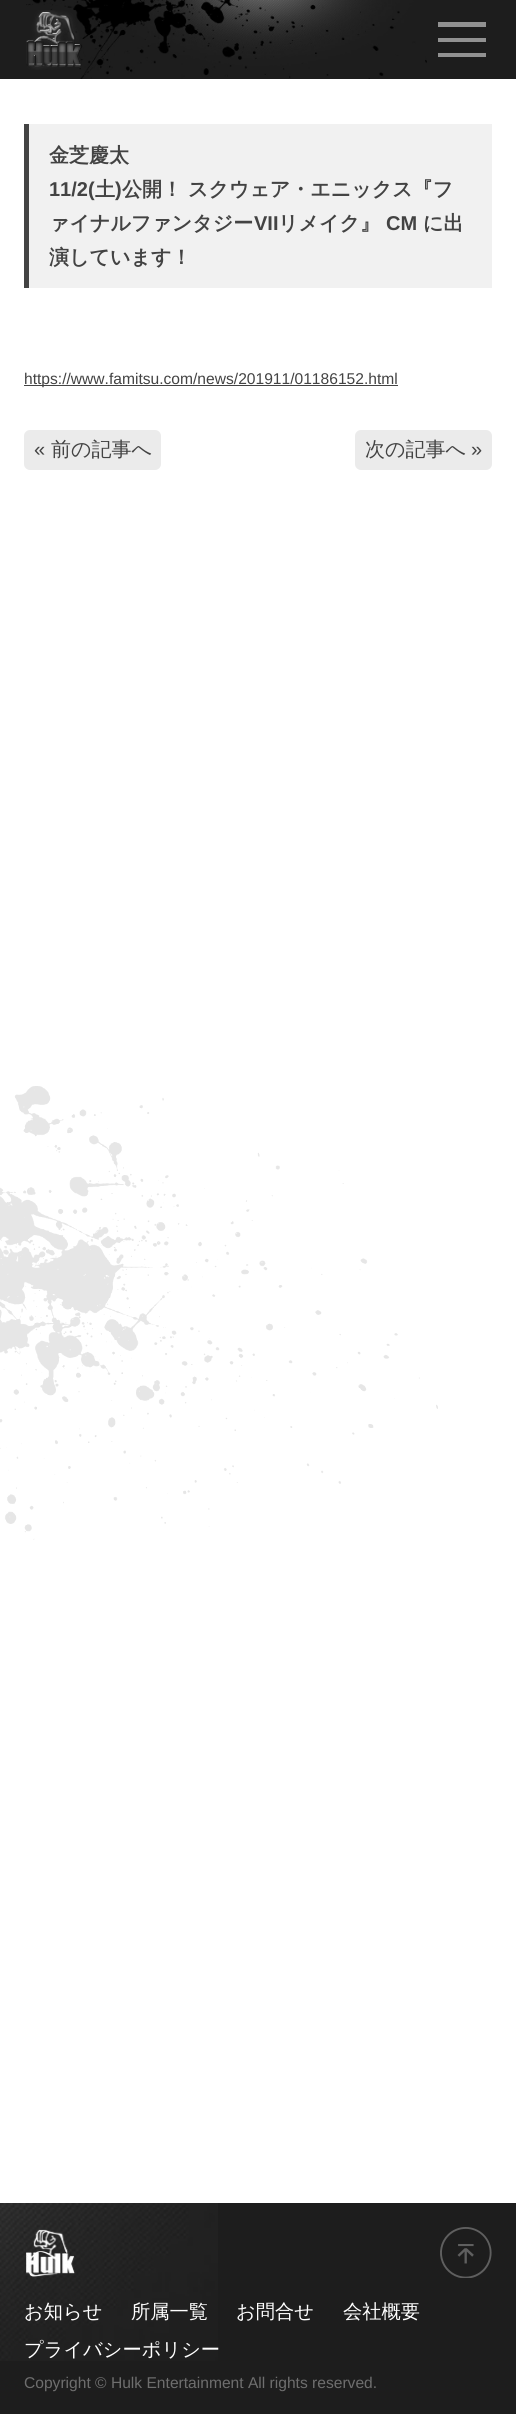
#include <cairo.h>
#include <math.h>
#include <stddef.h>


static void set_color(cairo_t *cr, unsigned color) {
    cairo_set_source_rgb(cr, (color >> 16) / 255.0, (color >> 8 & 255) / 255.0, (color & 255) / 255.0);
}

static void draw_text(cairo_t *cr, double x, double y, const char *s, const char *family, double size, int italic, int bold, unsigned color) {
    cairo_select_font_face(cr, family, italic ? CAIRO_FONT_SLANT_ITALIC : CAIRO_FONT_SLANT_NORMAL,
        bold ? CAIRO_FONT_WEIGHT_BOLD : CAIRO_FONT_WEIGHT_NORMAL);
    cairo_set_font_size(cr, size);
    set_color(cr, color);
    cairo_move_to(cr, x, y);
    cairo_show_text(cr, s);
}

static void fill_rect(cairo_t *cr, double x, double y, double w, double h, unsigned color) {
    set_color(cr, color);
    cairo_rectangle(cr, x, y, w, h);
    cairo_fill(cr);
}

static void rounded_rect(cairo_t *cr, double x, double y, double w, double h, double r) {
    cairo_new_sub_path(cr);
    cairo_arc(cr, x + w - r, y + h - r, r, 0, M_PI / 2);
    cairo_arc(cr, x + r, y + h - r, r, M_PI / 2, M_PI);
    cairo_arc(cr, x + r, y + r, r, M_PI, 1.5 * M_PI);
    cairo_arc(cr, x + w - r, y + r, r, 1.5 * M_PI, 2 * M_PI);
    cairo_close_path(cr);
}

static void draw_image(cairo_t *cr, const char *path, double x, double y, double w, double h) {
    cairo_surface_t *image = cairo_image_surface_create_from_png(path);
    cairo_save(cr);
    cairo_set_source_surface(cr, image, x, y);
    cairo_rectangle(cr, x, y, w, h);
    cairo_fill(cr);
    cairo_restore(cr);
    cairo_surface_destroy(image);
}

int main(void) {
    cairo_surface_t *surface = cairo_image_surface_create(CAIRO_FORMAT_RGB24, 516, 2414);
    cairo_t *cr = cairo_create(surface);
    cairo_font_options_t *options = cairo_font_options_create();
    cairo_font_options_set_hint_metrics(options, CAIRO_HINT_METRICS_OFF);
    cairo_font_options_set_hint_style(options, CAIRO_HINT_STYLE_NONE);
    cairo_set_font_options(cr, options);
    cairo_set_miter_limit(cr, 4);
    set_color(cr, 0xFFFFFF);
    cairo_paint(cr);
    fill_rect(cr, 0, 0, 516, 79, 0x1D1D1D);
    draw_image(cr, "assets/img1.png", 26, 0, 401, 79);
    draw_image(cr, "assets/img2.png", 26, 10, 56, 60);
    cairo_save(cr);
    cairo_rectangle(cr, 438, 22, 48, 35);
    cairo_clip(cr);
    set_color(cr, 0x919191);
    cairo_new_path(cr);
    cairo_move_to(cr, 438, 58);
    cairo_line_to(cr, 438, 53);
    cairo_line_to(cr, 486, 53);
    cairo_line_to(cr, 486, 58);
    cairo_close_path(cr);
    cairo_move_to(cr, 438, 42);
    cairo_line_to(cr, 438, 38);
    cairo_line_to(cr, 486, 38);
    cairo_line_to(cr, 486, 42);
    cairo_close_path(cr);
    cairo_move_to(cr, 438, 27);
    cairo_line_to(cr, 438, 22);
    cairo_line_to(cr, 486, 22);
    cairo_line_to(cr, 486, 27);
    cairo_close_path(cr);
    cairo_fill(cr);
    cairo_restore(cr);
    fill_rect(cr, 29, 124, 463, 164, 0xF1F1F1);
    fill_rect(cr, 24, 124, 5, 164, 0x434343);
    draw_text(cr, 49, 162, "金芝慶太", "WenQuanYi Zen Hei", 20, 0, 1, 0x434343);
    draw_text(cr, 49, 196, "11/2(", "Liberation Sans", 20, 0, 1, 0x434343);
    draw_text(cr, 95, 196, "土", "WenQuanYi Zen Hei", 20, 0, 1, 0x434343);
    draw_text(cr, 115, 196, ")", "Liberation Sans", 20, 0, 1, 0x434343);
    draw_text(cr, 122, 196, "公開！ スクウェア・エニックス『フ", "WenQuanYi Zen Hei", 20, 0, 1, 0x434343);
    draw_text(cr, 49, 230, "ァイナルファンタジー", "WenQuanYi Zen Hei", 20, 0, 1, 0x434343);
    draw_text(cr, 254, 230, "VII", "Liberation Sans", 20, 0, 1, 0x434343);
    draw_text(cr, 278, 230, "リメイク』", "WenQuanYi Zen Hei", 20, 0, 1, 0x434343);
    draw_text(cr, 386, 230, "CM", "Liberation Sans", 20, 0, 1, 0x434343);
    draw_text(cr, 423, 230, "に出", "WenQuanYi Zen Hei", 20, 0, 1, 0x434343);
    draw_text(cr, 49, 264, "演しています！", "WenQuanYi Zen Hei", 20, 0, 1, 0x434343);
    fill_rect(cr, 24, 385, 374, 1, 0x434343);
    draw_text(cr, 24, 384, "https://www.famitsu.com/news/201911/01186152.html", "Liberation Sans", 15.6, 0, 0, 0x434343);
    set_color(cr, 0xEBEBEB);
    rounded_rect(cr, 24, 430, 137, 40, 6);
    cairo_fill(cr);
    draw_text(cr, 34, 456, "«", "Liberation Sans", 20, 0, 0, 0x434343);
    draw_text(cr, 51, 456, "前の記事へ", "WenQuanYi Zen Hei Medium", 20, 0, 0, 0x434343);
    set_color(cr, 0xEBEBEB);
    rounded_rect(cr, 355, 430, 137, 40, 6);
    cairo_fill(cr);
    draw_text(cr, 365, 456, "次の記事へ", "WenQuanYi Zen Hei Medium", 20, 0, 0, 0x434343);
    draw_text(cr, 471, 456, "»", "Liberation Sans", 20, 0, 0, 0x434343);
    draw_image(cr, "assets/img3.png", 0, 1086, 438, 454);
    fill_rect(cr, 0, 2203, 516, 211, 0x1D1D1D);
    draw_image(cr, "assets/img4.png", 0, 2203, 218, 158);
    draw_image(cr, "assets/img5.png", 26, 2229, 49, 49);
    draw_image(cr, "assets/img6.png", 440, 2227, 52, 51);
    draw_text(cr, 24, 2318, "お知らせ", "WenQuanYi Zen Hei Medium", 19.25, 0, 0, 0xFFFFFF);
    draw_text(cr, 131, 2318, "所属一覧", "WenQuanYi Zen Hei Medium", 19.25, 0, 0, 0xFFFFFF);
    draw_text(cr, 236, 2318, "お問合せ", "WenQuanYi Zen Hei Medium", 19.25, 0, 0, 0xFFFFFF);
    draw_text(cr, 343, 2318, "会社概要", "WenQuanYi Zen Hei Medium", 19.25, 0, 0, 0xFFFFFF);
    draw_text(cr, 24, 2356, "プライバシーポリシー", "WenQuanYi Zen Hei Medium", 19.25, 0, 0, 0xFFFFFF);
    draw_text(cr, 24, 2388, "Copyright © Hulk Entertainment All rights reserved.", "Liberation Sans", 15.6, 0, 0, 0x6E6E6E);
    cairo_surface_write_to_png(surface, "output.png");
    cairo_font_options_destroy(options);
    cairo_destroy(cr);
    cairo_surface_destroy(surface);
    return 0;
}
